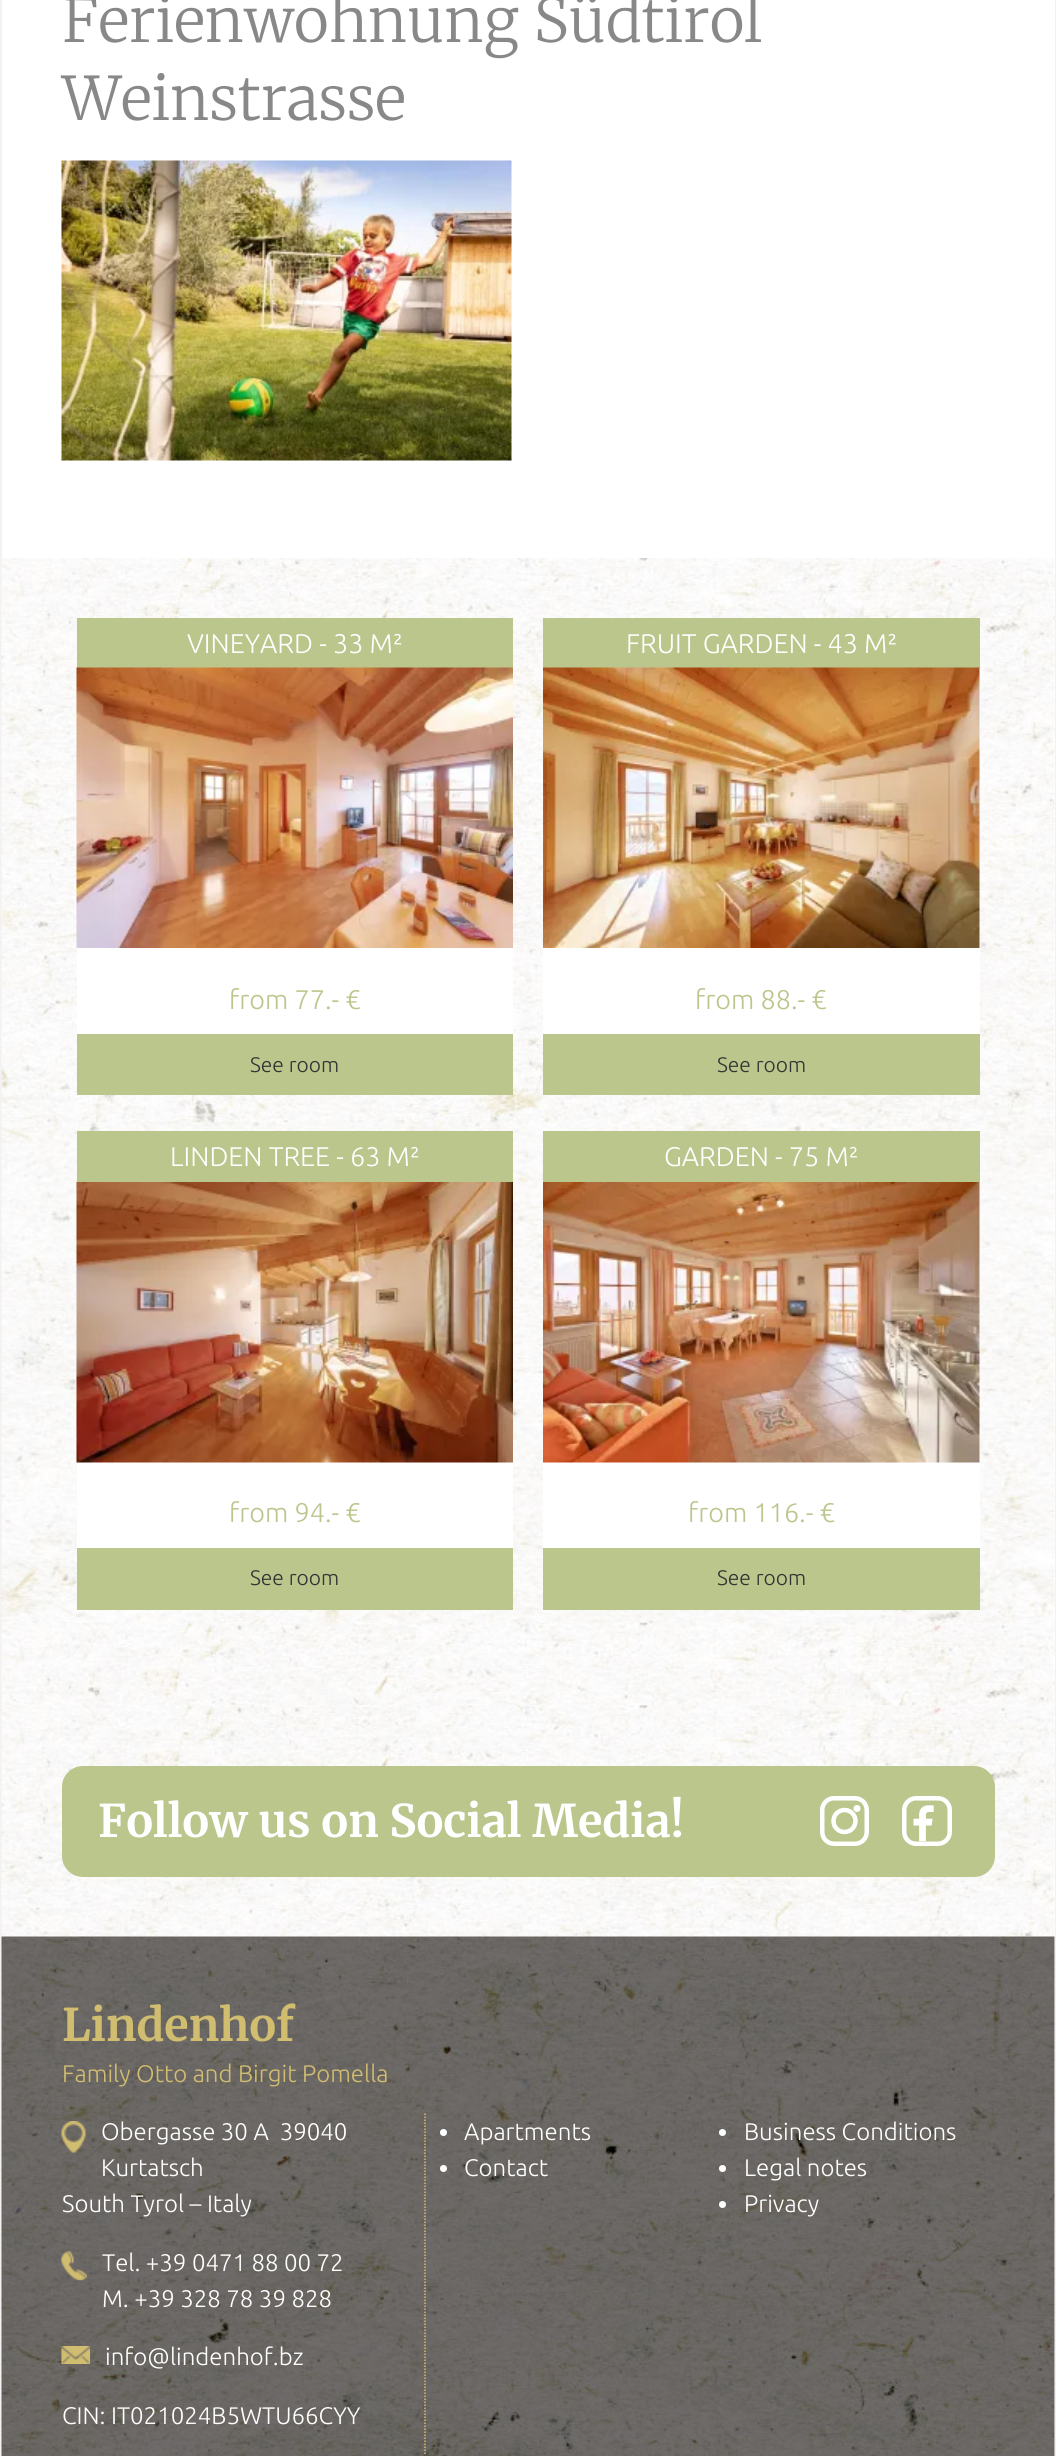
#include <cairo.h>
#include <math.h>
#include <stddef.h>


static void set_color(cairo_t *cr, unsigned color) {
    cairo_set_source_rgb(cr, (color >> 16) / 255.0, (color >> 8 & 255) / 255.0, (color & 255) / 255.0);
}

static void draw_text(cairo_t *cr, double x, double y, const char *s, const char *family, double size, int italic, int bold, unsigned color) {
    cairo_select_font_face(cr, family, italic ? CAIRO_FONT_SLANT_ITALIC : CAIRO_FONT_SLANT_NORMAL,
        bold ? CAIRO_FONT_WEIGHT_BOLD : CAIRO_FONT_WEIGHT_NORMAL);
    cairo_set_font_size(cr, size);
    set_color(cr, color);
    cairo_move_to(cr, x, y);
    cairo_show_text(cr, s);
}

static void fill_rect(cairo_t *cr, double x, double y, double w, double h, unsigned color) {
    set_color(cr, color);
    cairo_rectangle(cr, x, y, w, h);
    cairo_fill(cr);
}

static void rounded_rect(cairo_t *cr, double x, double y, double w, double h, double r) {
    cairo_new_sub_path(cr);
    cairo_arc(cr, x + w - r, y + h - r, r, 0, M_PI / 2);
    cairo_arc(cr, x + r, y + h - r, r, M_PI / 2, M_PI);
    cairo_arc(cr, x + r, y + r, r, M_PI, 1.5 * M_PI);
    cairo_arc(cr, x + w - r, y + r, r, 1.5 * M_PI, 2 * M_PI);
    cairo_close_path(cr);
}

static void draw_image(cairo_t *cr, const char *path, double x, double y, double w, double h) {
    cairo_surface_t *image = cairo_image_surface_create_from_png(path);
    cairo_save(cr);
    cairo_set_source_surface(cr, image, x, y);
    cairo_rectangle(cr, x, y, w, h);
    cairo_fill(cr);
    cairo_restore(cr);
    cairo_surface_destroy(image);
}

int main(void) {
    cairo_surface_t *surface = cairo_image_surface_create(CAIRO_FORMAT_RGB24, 1056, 2456);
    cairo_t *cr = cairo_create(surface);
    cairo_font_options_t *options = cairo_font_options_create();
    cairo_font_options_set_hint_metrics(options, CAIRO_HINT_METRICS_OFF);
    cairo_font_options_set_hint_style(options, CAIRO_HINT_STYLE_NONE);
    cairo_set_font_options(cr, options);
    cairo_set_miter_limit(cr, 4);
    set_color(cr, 0xFFFFFF);
    cairo_paint(cr);
    fill_rect(cr, 1055, 0, 1, 2456, 0xF2F2F2);
    fill_rect(cr, 0, 0, 2, 2456, 0xF2F2F2);
    draw_text(cr, 62, 42, "Ferienwohnung Südtirol", "Merriweather Light", 60, 0, 0, 0x888888);
    draw_text(cr, 62, 120, "Weinstrasse", "Merriweather Light", 60, 0, 0, 0x888888);
    draw_image(cr, "assets/img1.png", 61, 160, 451, 301);
    draw_image(cr, "assets/img2.png", 1, 558, 1054, 1148);
    fill_rect(cr, 77, 948, 436, 86, 0xFFFFFF);
    fill_rect(cr, 77, 618, 436, 50, 0xBAC68C);
    draw_text(cr, 187, 653, "VINEYARD - 33 M²", "Ubuntu Light", 27, 0, 0, 0xFFFFFF);
    draw_image(cr, "assets/img3.png", 76, 667, 437, 281);
    draw_text(cr, 229, 1009, "from 77.- €", "Ubuntu Light", 27, 0, 0, 0xBAC68C);
    fill_rect(cr, 77, 1034, 436, 61, 0xBAC68C);
    draw_text(cr, 250, 1072, "See room", "Ubuntu Light", 21, 0, 0, 0x333333);
    fill_rect(cr, 543, 668, 437, 366, 0xFFFFFF);
    fill_rect(cr, 543, 618, 437, 50, 0xBAC68C);
    draw_text(cr, 626, 653, "FRUIT GARDEN - 43 M²", "Ubuntu Light", 27, 0, 0, 0xFFFFFF);
    draw_image(cr, "assets/img4.png", 543, 667, 437, 281);
    draw_text(cr, 695, 1009, "from 88.- €", "Ubuntu Light", 27, 0, 0, 0xBAC68C);
    fill_rect(cr, 543, 1034, 437, 61, 0xBAC68C);
    draw_text(cr, 717, 1072, "See room", "Ubuntu Light", 21, 0, 0, 0x333333);
    fill_rect(cr, 77, 1462, 436, 86, 0xFFFFFF);
    fill_rect(cr, 77, 1131, 436, 51, 0xBAC68C);
    draw_text(cr, 170, 1166, "LINDEN TREE - 63 M²", "Ubuntu Light", 27, 0, 0, 0xFFFFFF);
    draw_image(cr, "assets/img5.png", 76, 1182, 437, 281);
    draw_text(cr, 229, 1522, "from 94.- €", "Ubuntu Light", 27, 0, 0, 0xBAC68C);
    fill_rect(cr, 77, 1548, 436, 62, 0xBAC68C);
    draw_text(cr, 250, 1585, "See room", "Ubuntu Light", 21, 0, 0, 0x333333);
    fill_rect(cr, 543, 1182, 437, 366, 0xFFFFFF);
    fill_rect(cr, 543, 1131, 437, 51, 0xBAC68C);
    draw_text(cr, 664, 1166, "GARDEN - 75 M²", "Ubuntu Light", 27, 0, 0, 0xFFFFFF);
    draw_image(cr, "assets/img6.png", 543, 1182, 437, 281);
    draw_text(cr, 688, 1522, "from 116.- €", "Ubuntu Light", 27, 0, 0, 0xBAC68C);
    fill_rect(cr, 543, 1548, 437, 62, 0xBAC68C);
    draw_text(cr, 717, 1585, "See room", "Ubuntu Light", 21, 0, 0, 0x333333);
    draw_image(cr, "assets/img7.png", 1, 1705, 1054, 232);
    set_color(cr, 0xBAC68C);
    rounded_rect(cr, 62, 1766, 933, 111, 21);
    cairo_fill(cr);
    draw_text(cr, 98, 1837, "Follow us on Social Media!", "Merriweather", 45, 0, 1, 0xFFFFFF);
    rounded_rect(cr, 822.25, 1798.25, 44.5, 45.5, 11.75);
    cairo_set_line_width(cr, 4.5);
    cairo_stroke(cr);
    cairo_arc(cr, 844.5, 1821, 11, 0, 2 * M_PI);
    cairo_stroke(cr);
    cairo_arc(cr, 857, 1808.5, 3.5, 0, 2 * M_PI);
    cairo_fill(cr);
    draw_image(cr, "assets/img8.png", 902, 1796, 50, 50);
    draw_image(cr, "assets/img9.png", 1, 1936, 1054, 520);
    draw_text(cr, 62, 2041, "Lindenhof", "Merriweather", 45, 0, 1, 0xD1BD70);
    draw_text(cr, 62, 2082, "Family Otto and Birgit Pomella", "Ubuntu Light", 24, 0, 0, 0xD1BD70);
    cairo_new_path(cr);
    cairo_move_to(cr, 425, 2113.5);
    cairo_line_to(cr, 425, 2455.5);
    cairo_set_line_width(cr, 1.5);
    cairo_set_dash(cr, (double[]){1.5, 1.5}, 2, 0);
    cairo_stroke(cr);
    draw_image(cr, "assets/img10.png", 61, 2121, 25, 32);
    draw_text(cr, 101, 2140, "Obergasse 30 A  39040", "Ubuntu Light", 24, 0, 0, 0xFFFFFF);
    draw_text(cr, 101, 2176, "Kurtatsch", "Ubuntu Light", 24, 0, 0, 0xFFFFFF);
    draw_text(cr, 62, 2212, "South Tyrol – Italy", "Ubuntu Light", 24, 0, 0, 0xFFFFFF);
    draw_image(cr, "assets/img11.png", 61, 2251, 26, 30);
    draw_text(cr, 102, 2271, "Tel. +39 0471 88 00 72", "Ubuntu Light", 24, 0, 0, 0xFFFFFF);
    draw_text(cr, 102, 2307, "M. +39 328 78 39 828", "Ubuntu Light", 24, 0, 0, 0xFFFFFF);
    draw_image(cr, "assets/img12.png", 61, 2346, 29, 18);
    draw_text(cr, 105, 2365, "info@lindenhof.bz", "Ubuntu Light", 24, 0, 0, 0xFFFFFF);
    draw_text(cr, 62, 2424, "CIN: IT021024B5WTU66CYY", "Ubuntu Light", 24, 0, 0, 0xFFFFFF);
    cairo_new_path(cr);
    cairo_arc(cr, 443.5, 2132.5, 3.5, 0, 2 * M_PI);
    cairo_fill(cr);
    draw_text(cr, 464, 2140, "Apartments", "Ubuntu Light", 24, 0, 0, 0xFFFFFF);
    cairo_new_path(cr);
    cairo_arc(cr, 443.5, 2168.5, 3.5, 0, 2 * M_PI);
    cairo_fill(cr);
    draw_text(cr, 464, 2176, "Contact", "Ubuntu Light", 24, 0, 0, 0xFFFFFF);
    cairo_new_path(cr);
    cairo_arc(cr, 722.5, 2132.5, 3.5, 0, 2 * M_PI);
    cairo_fill(cr);
    draw_text(cr, 744, 2140, "Business Conditions", "Ubuntu Light", 24, 0, 0, 0xFFFFFF);
    cairo_new_path(cr);
    cairo_arc(cr, 722.5, 2168.5, 3.5, 0, 2 * M_PI);
    cairo_fill(cr);
    draw_text(cr, 744, 2176, "Legal notes", "Ubuntu Light", 24, 0, 0, 0xFFFFFF);
    cairo_new_path(cr);
    cairo_arc(cr, 722.5, 2204.5, 3.5, 0, 2 * M_PI);
    cairo_fill(cr);
    draw_text(cr, 744, 2212, "Privacy", "Ubuntu Light", 24, 0, 0, 0xFFFFFF);
    cairo_surface_write_to_png(surface, "output.png");
    cairo_font_options_destroy(options);
    cairo_destroy(cr);
    cairo_surface_destroy(surface);
    return 0;
}
